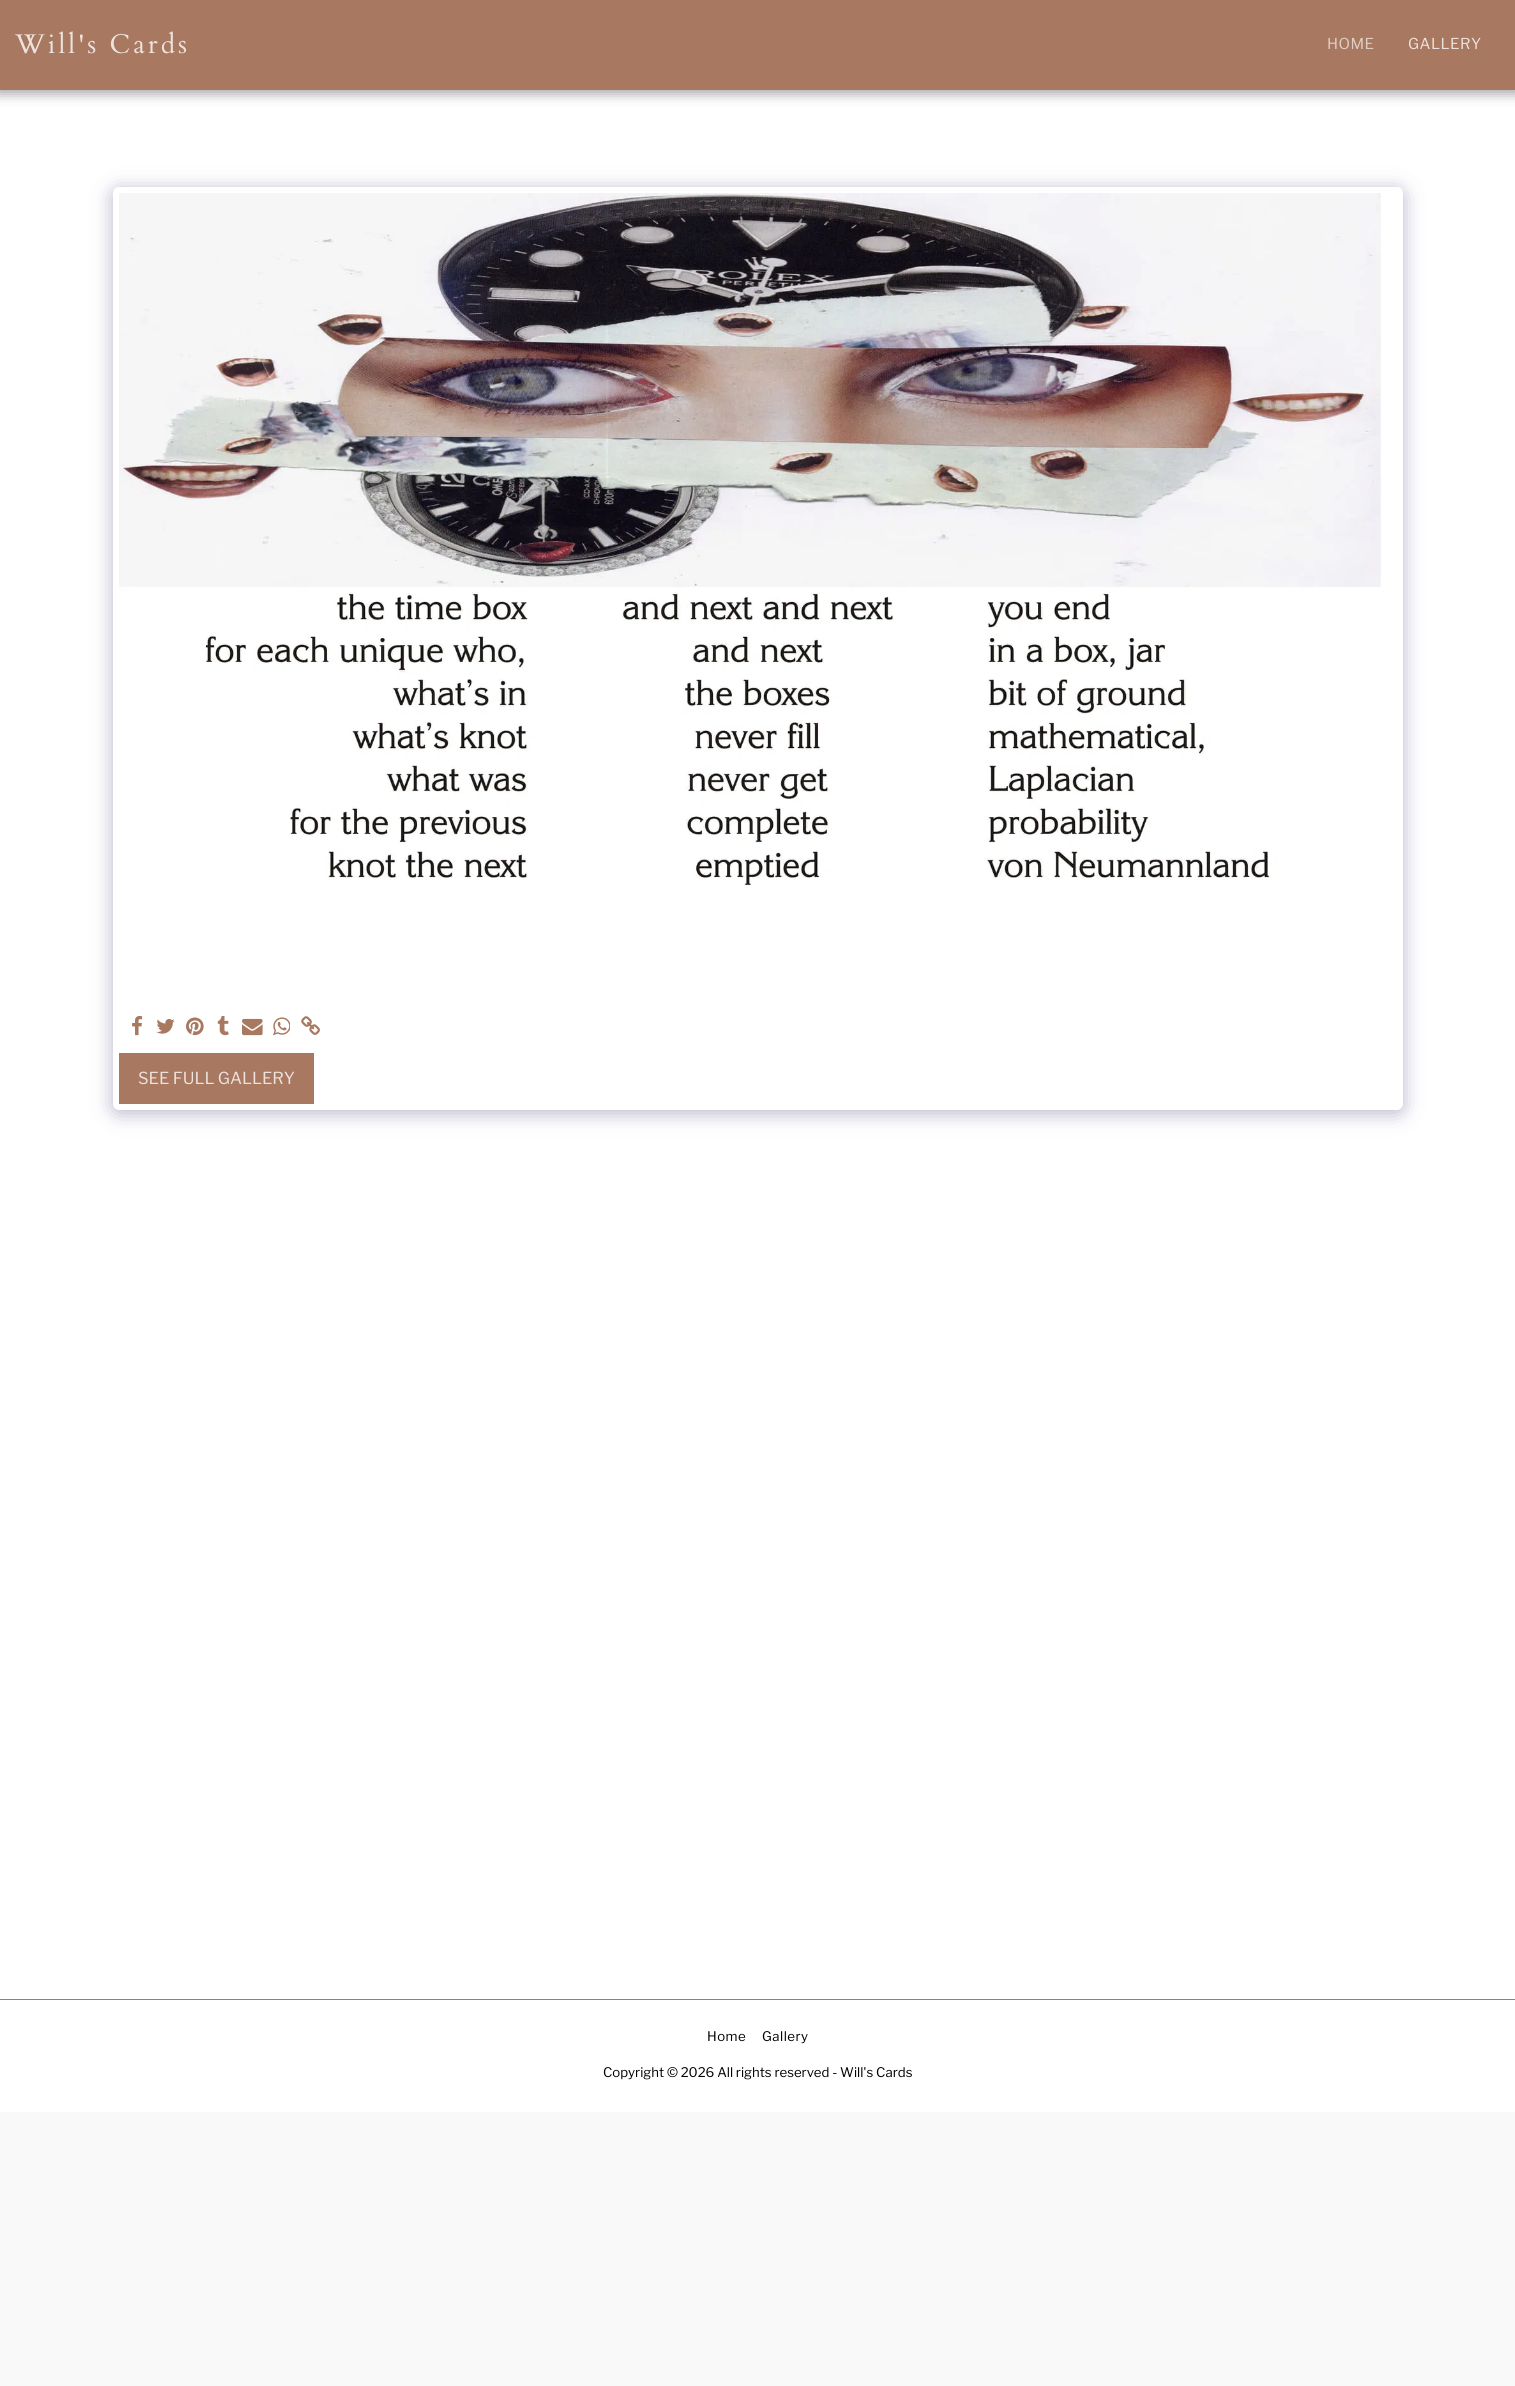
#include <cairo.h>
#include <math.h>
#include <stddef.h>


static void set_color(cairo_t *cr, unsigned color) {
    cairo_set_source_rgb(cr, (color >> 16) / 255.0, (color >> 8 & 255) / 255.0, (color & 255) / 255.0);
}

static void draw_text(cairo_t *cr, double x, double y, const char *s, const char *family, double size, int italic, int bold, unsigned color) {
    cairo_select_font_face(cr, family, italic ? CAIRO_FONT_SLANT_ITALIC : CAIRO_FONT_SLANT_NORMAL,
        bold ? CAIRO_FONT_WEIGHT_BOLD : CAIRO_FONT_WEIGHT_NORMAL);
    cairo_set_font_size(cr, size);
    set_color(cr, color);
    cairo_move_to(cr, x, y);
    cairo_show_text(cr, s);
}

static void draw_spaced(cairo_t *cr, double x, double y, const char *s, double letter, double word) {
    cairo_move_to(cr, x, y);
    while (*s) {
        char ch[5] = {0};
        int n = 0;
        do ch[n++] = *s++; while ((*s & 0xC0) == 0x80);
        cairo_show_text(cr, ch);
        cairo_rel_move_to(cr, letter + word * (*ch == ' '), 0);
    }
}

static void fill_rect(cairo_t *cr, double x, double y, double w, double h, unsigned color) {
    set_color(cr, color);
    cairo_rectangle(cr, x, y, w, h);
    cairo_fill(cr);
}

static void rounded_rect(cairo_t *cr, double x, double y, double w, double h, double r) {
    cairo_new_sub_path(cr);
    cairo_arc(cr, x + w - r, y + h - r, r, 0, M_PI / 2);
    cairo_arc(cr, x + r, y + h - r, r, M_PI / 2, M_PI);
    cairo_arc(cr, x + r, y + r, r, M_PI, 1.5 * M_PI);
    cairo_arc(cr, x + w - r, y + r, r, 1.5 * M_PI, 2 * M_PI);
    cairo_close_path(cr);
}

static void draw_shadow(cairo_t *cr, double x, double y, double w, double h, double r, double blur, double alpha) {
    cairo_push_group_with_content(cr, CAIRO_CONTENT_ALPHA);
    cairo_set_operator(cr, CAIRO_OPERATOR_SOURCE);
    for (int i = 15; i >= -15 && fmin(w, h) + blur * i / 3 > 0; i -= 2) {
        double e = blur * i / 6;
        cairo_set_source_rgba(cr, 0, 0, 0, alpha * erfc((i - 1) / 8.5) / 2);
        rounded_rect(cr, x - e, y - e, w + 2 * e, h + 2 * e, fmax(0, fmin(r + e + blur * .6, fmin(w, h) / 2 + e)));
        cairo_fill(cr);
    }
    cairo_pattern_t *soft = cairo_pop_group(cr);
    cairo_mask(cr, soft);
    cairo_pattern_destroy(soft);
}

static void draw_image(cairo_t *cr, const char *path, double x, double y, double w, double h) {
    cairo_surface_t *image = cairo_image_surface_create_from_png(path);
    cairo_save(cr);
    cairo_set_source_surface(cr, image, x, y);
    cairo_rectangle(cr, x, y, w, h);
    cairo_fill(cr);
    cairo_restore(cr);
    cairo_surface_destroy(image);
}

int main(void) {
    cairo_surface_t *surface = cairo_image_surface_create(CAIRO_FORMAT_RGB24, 1515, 2386);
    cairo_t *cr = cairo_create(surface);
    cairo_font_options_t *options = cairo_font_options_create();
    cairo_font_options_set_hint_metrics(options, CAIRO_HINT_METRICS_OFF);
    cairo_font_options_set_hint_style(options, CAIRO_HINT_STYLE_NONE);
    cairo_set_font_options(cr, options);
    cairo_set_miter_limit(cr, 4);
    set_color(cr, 0xF9F9F9);
    cairo_paint(cr);
    fill_rect(cr, 0, 90, 1515, 1909, 0xFFFFFF);
    set_color(cr, 0x000000);
    draw_shadow(cr, -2, 0, 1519, 94, 0, 6, 0.35);
    fill_rect(cr, 0, 0, 1515, 90, 0xA87860);
    cairo_select_font_face(cr, "Cardo", CAIRO_FONT_SLANT_NORMAL, CAIRO_FONT_WEIGHT_NORMAL);
    cairo_set_font_size(cr, 27);
    set_color(cr, 0xEDE3DE);
    draw_spaced(cr, 15, 53, "Will's Cards", 3, 0);
    cairo_select_font_face(cr, "Libre Franklin", CAIRO_FONT_SLANT_NORMAL, CAIRO_FONT_WEIGHT_NORMAL);
    cairo_set_font_size(cr, 15);
    set_color(cr, 0xDFCEC5);
    draw_spaced(cr, 1327, 49, "HOME", 0.5, 0);
    set_color(cr, 0xEDE3DE);
    draw_spaced(cr, 1408, 49, "GALLERY", 0.5, 0);
    set_color(cr, 0x4D3F7A);
    draw_shadow(cr, 113, 190, 1290, 923, 6, 10, 0.4);
    set_color(cr, 0xFFFFFF);
    rounded_rect(cr, 113, 187, 1290, 923, 6);
    cairo_fill(cr);
    draw_image(cr, "assets/img1.png", 119, 193, 1262, 693);
    draw_image(cr, "assets/img2.png", 132, 1016, 11, 20);
    draw_image(cr, "assets/img3.png", 156, 1019, 19, 15);
    draw_image(cr, "assets/img4.png", 186, 1017, 18, 19);
    draw_image(cr, "assets/img5.png", 217, 1016, 12, 20);
    draw_image(cr, "assets/img6.png", 242, 1018, 21, 18);
    draw_image(cr, "assets/img7.png", 273, 1017, 17, 19);
    draw_image(cr, "assets/img8.png", 301, 1016, 19, 19);
    fill_rect(cr, 119, 1053, 195, 51, 0xA87860);
    draw_text(cr, 138, 1084, "SEE FULL GALLERY", "Libre Franklin", 16.5, 0, 0, 0xEDE3DE);
    fill_rect(cr, 0, 1999, 1515, 1, 0xA87860);
    fill_rect(cr, 0, 2000, 1515, 112, 0xFFFFFF);
    cairo_set_font_size(cr, 13.2);
    set_color(cr, 0x000000);
    draw_spaced(cr, 707, 2041, "Home", 0.5, 0);
    draw_spaced(cr, 762, 2041, "Gallery", 0.5, 0);
    draw_text(cr, 603, 2077, "Copyright © 2026 All rights reserved - Will's Cards", "Libre Franklin", 13.2, 0, 0, 0x000000);
    cairo_surface_write_to_png(surface, "output.png");
    cairo_font_options_destroy(options);
    cairo_destroy(cr);
    cairo_surface_destroy(surface);
    return 0;
}
